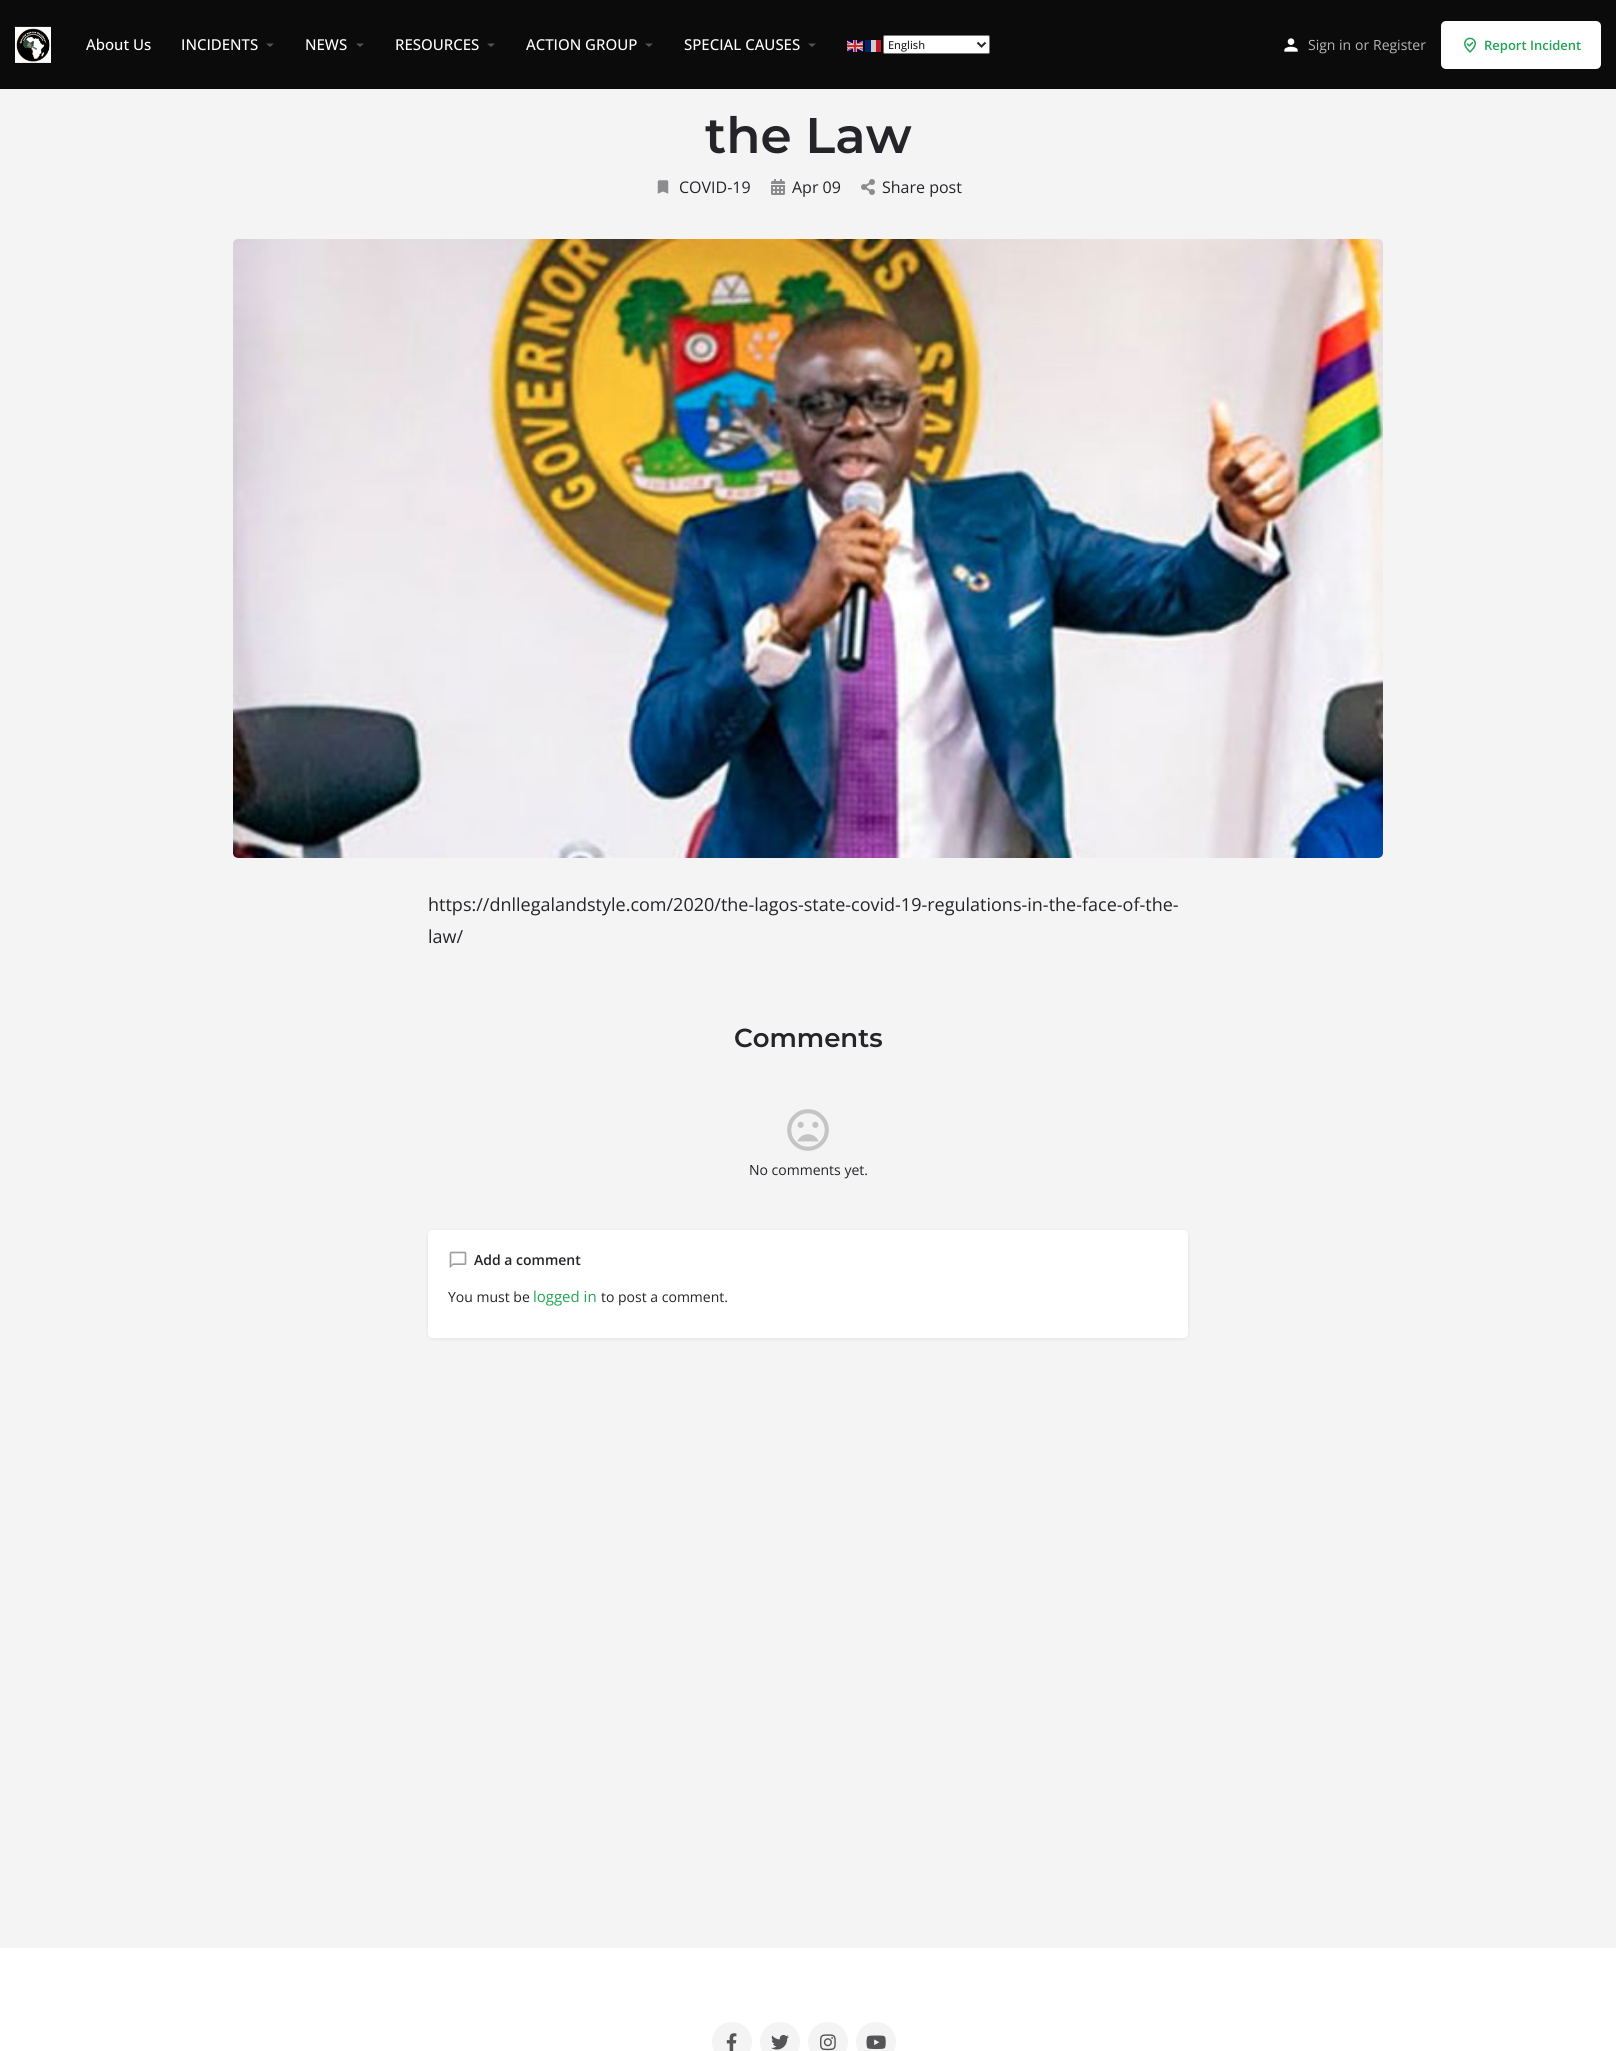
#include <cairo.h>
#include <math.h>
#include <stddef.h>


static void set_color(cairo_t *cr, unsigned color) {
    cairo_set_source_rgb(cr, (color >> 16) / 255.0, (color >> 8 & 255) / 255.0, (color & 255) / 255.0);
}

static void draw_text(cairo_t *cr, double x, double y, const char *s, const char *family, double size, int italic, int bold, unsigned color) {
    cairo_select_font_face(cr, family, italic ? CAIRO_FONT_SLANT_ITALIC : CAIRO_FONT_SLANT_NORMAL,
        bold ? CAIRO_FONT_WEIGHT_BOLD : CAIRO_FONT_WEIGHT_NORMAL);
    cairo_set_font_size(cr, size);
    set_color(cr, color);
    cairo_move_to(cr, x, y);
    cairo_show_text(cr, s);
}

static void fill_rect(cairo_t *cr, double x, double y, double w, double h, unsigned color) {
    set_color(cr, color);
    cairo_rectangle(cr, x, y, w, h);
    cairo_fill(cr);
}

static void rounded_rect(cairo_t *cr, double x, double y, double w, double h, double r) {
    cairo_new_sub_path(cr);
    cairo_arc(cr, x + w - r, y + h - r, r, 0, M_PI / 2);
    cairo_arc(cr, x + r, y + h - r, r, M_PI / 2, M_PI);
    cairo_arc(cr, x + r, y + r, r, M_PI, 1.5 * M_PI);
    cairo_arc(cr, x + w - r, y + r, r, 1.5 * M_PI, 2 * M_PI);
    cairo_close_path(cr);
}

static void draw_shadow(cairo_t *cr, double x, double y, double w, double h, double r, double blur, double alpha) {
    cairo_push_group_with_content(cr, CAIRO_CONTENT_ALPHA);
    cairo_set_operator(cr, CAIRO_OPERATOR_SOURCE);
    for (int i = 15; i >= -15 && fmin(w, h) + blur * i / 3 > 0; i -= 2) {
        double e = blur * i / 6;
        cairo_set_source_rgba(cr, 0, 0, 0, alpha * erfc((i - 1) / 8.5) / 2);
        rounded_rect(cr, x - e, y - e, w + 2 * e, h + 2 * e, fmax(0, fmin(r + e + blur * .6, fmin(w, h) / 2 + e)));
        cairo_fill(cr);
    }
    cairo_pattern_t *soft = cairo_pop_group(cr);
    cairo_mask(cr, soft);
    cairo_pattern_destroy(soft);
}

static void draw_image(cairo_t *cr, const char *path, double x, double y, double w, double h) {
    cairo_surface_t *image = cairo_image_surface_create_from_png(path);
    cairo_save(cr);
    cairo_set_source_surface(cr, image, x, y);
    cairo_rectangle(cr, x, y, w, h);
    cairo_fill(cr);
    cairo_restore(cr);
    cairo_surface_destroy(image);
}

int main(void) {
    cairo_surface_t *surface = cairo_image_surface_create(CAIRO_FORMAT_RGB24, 1616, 2051);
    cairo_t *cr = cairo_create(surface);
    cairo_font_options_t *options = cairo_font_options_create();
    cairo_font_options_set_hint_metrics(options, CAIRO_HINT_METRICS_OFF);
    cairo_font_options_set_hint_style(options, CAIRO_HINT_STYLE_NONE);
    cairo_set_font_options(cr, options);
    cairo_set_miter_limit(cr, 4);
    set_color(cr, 0xF4F4F4);
    cairo_paint(cr);
    fill_rect(cr, 0, 0, 1616, 89, 0x0B0B0B);
    draw_image(cr, "assets/img1.png", 15, 26, 36, 37);
    draw_text(cr, 86, 50, "About Us", "Open Sans Medium", 15, 0, 0, 0xFFFFFF);
    draw_text(cr, 181, 50, "INCIDENTS", "Open Sans Medium", 15, 0, 0, 0xFFFFFF);
    set_color(cr, 0x545454);
    cairo_new_path(cr);
    cairo_move_to(cr, 266, 43.5);
    cairo_line_to(cr, 274, 43.5);
    cairo_line_to(cr, 270, 47);
    cairo_close_path(cr);
    cairo_fill(cr);
    draw_text(cr, 305, 50, "NEWS", "Open Sans Medium", 15, 0, 0, 0xFFFFFF);
    set_color(cr, 0x545454);
    cairo_new_path(cr);
    cairo_move_to(cr, 356, 43.5);
    cairo_line_to(cr, 364, 43.5);
    cairo_line_to(cr, 360, 47);
    cairo_close_path(cr);
    cairo_fill(cr);
    draw_text(cr, 395, 50, "RESOURCES", "Open Sans Medium", 15, 0, 0, 0xFFFFFF);
    set_color(cr, 0x545454);
    cairo_new_path(cr);
    cairo_move_to(cr, 487, 43.5);
    cairo_line_to(cr, 495, 43.5);
    cairo_line_to(cr, 491, 47);
    cairo_close_path(cr);
    cairo_fill(cr);
    draw_text(cr, 526, 50, "ACTION GROUP", "Open Sans Medium", 15, 0, 0, 0xFFFFFF);
    set_color(cr, 0x545454);
    cairo_new_path(cr);
    cairo_move_to(cr, 645, 43.5);
    cairo_line_to(cr, 653, 43.5);
    cairo_line_to(cr, 649, 47);
    cairo_close_path(cr);
    cairo_fill(cr);
    draw_text(cr, 684, 50, "SPECIAL CAUSES", "Open Sans Medium", 15, 0, 0, 0xFFFFFF);
    set_color(cr, 0x545454);
    cairo_new_path(cr);
    cairo_move_to(cr, 808, 43.5);
    cairo_line_to(cr, 816, 43.5);
    cairo_line_to(cr, 812, 47);
    cairo_close_path(cr);
    cairo_fill(cr);
    draw_image(cr, "assets/img2.png", 847, 40, 16, 12);
    fill_rect(cr, 865, 40, 6, 12, 0x022168);
    fill_rect(cr, 871, 40, 5, 12, 0xCECECE);
    fill_rect(cr, 876, 40, 5, 12, 0xC51529);
    set_color(cr, 0xFFFFFF);
    rounded_rect(cr, 883.5, 35.5, 106, 18, 1.5);
    cairo_fill_preserve(cr);
    set_color(cr, 0x767676);
    cairo_set_line_width(cr, 1);
    cairo_stroke(cr);
    cairo_new_path(cr);
    cairo_move_to(cr, 977.5, 42.5);
    cairo_line_to(cr, 981.5, 46.5);
    cairo_line_to(cr, 985.5, 42.5);
    set_color(cr, 0x242429);
    cairo_set_line_width(cr, 2);
    cairo_stroke(cr);
    draw_text(cr, 888, 49, "English", "Open Sans Medium", 11, 0, 0, 0x242429);
    draw_image(cr, "assets/img3.png", 1284, 38, 14, 14);
    draw_text(cr, 1308, 50, "Sign in", "Open Sans", 14, 0, 0, 0xB6B6B6);
    draw_text(cr, 1355, 50, "or", "Open Sans", 14, 0, 0, 0xB6B6B6);
    draw_text(cr, 1373, 50, "Register", "Open Sans", 14, 0, 0, 0xB6B6B6);
    set_color(cr, 0xFFFFFF);
    rounded_rect(cr, 1441, 21, 160, 48, 5);
    cairo_fill(cr);
    draw_image(cr, "assets/img4.png", 1464, 37, 12, 16);
    draw_text(cr, 1484, 50, "Report Incident", "Open Sans SemiBold", 13, 0, 0, 0x23A455);
    draw_text(cr, 705, 153, "the Law", "Montserrat SemiBold", 50, 0, 0, 0x242429);
    draw_image(cr, "assets/img5.png", 657, 180, 12, 14);
    draw_text(cr, 679, 193, "COVID-19", "Open Sans", 16, 0, 0, 0x242429);
    draw_image(cr, "assets/img6.png", 771, 179, 14, 16);
    draw_text(cr, 792, 193, "Apr 09", "Open Sans", 16, 0, 0, 0x242429);
    draw_image(cr, "assets/img7.png", 861, 179, 14, 16);
    draw_text(cr, 882, 193, "Share post", "Open Sans", 16, 0, 0, 0x242429);
    draw_image(cr, "assets/img8.png", 233, 239, 1150, 619);
    draw_text(cr, 428, 911, "https://dnllegalandstyle.com/2020/the-lagos-state-covid-19-regulations-in-the-face-of-the-", "Open Sans", 18, 0, 0, 0x242429);
    draw_text(cr, 428, 943, "law/", "Open Sans", 18, 0, 0, 0x242429);
    draw_text(cr, 734, 1047, "Comments", "Montserrat SemiBold", 26, 0, 0, 0x242429);
    draw_image(cr, "assets/img9.png", 787, 1109, 42, 42);
    draw_text(cr, 749, 1175, "No comments yet.", "Open Sans", 14, 0, 0, 0x242429);
    set_color(cr, 0x000000);
    draw_shadow(cr, 428, 1231, 760, 108, 5, 2, 0.07);
    set_color(cr, 0xFFFFFF);
    rounded_rect(cr, 428, 1230, 760, 108, 5);
    cairo_fill(cr);
    draw_image(cr, "assets/img10.png", 449, 1251, 18, 18);
    draw_text(cr, 474, 1265, "Add a comment", "Open Sans SemiBold", 14, 0, 0, 0x242429);
    draw_text(cr, 448, 1302, "You must be", "Open Sans", 14, 0, 0, 0x242429);
    draw_text(cr, 533, 1302, "logged in", "Open Sans", 15, 0, 0, 0x23A455);
    draw_text(cr, 601, 1302, "to post a comment.", "Open Sans", 14, 0, 0, 0x242429);
    fill_rect(cr, 0, 1948, 1616, 103, 0xFFFFFF);
    set_color(cr, 0xF4F4F4);
    cairo_new_path(cr);
    cairo_arc(cr, 732, 2042, 20, 0, 2 * M_PI);
    cairo_fill(cr);
    draw_image(cr, "assets/img11.png", 726, 2033, 11, 18);
    cairo_arc(cr, 780, 2042, 20, 0, 2 * M_PI);
    cairo_fill(cr);
    draw_image(cr, "assets/img12.png", 771, 2034, 18, 16);
    cairo_arc(cr, 828, 2042, 20, 0, 2 * M_PI);
    cairo_fill(cr);
    draw_image(cr, "assets/img13.png", 820, 2034, 16, 17);
    cairo_arc(cr, 876, 2042, 20, 0, 2 * M_PI);
    cairo_fill(cr);
    draw_image(cr, "assets/img14.png", 866, 2035, 20, 14);
    cairo_surface_write_to_png(surface, "output.png");
    cairo_font_options_destroy(options);
    cairo_destroy(cr);
    cairo_surface_destroy(surface);
    return 0;
}
